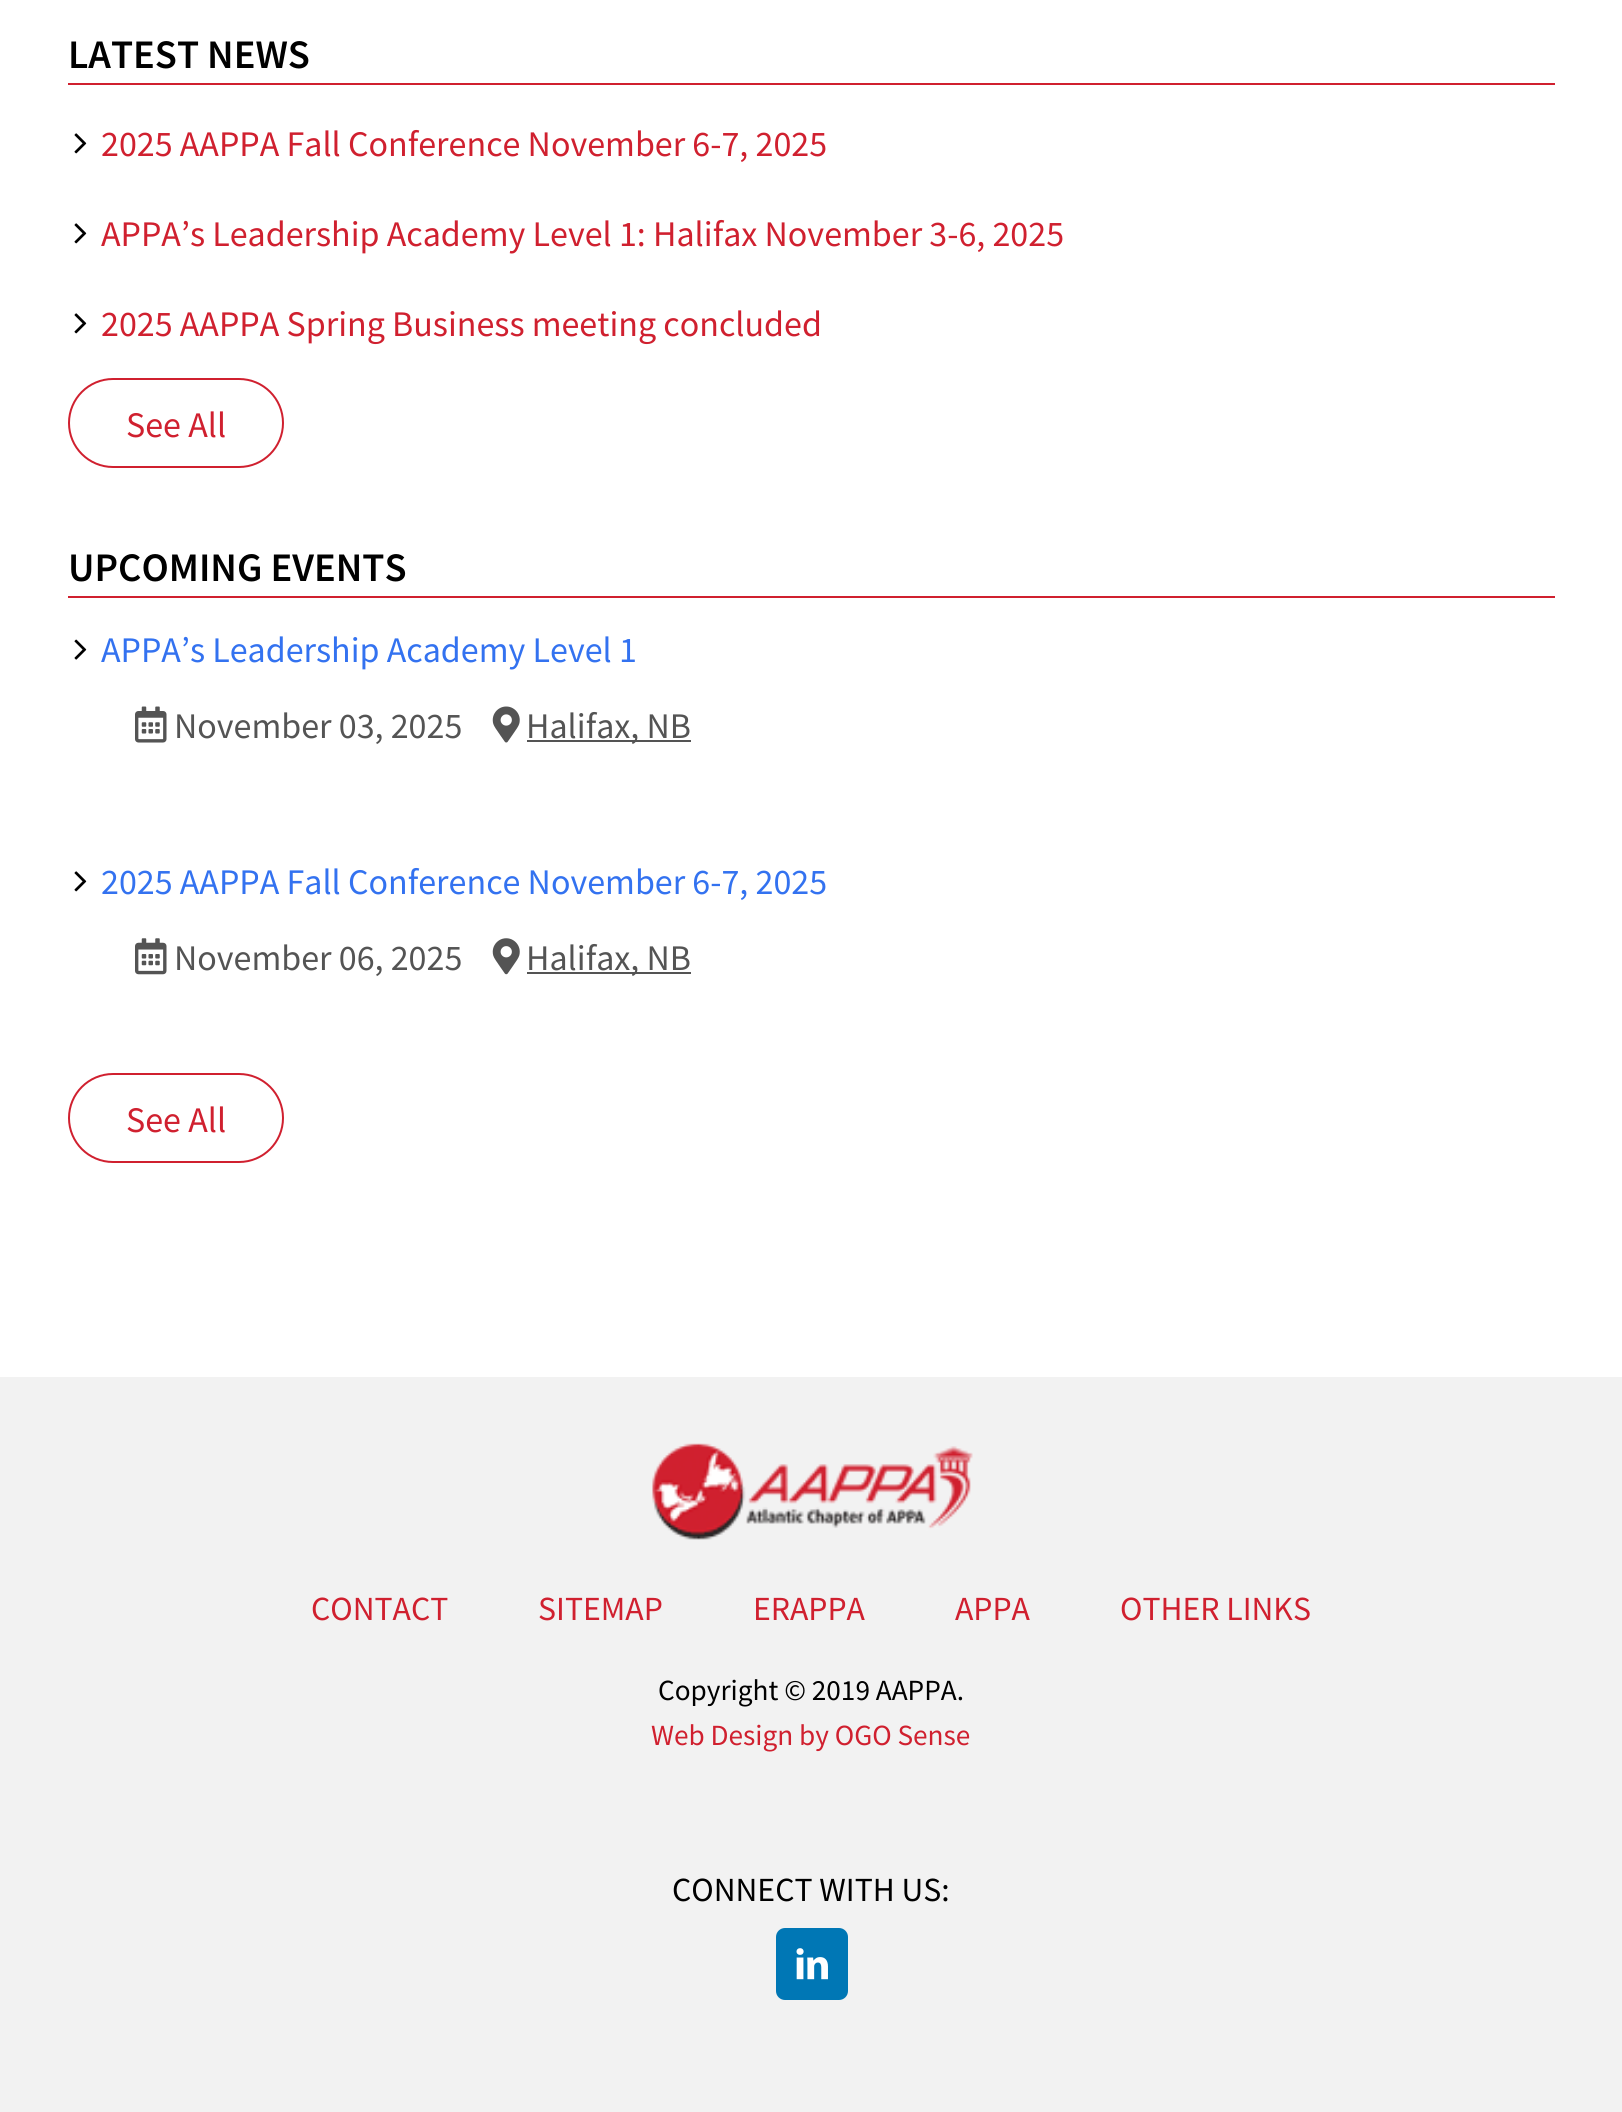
#include <cairo.h>
#include <math.h>
#include <stddef.h>


static void set_color(cairo_t *cr, unsigned color) {
    cairo_set_source_rgb(cr, (color >> 16) / 255.0, (color >> 8 & 255) / 255.0, (color & 255) / 255.0);
}

static void draw_text(cairo_t *cr, double x, double y, const char *s, const char *family, double size, int italic, int bold, unsigned color) {
    cairo_select_font_face(cr, family, italic ? CAIRO_FONT_SLANT_ITALIC : CAIRO_FONT_SLANT_NORMAL,
        bold ? CAIRO_FONT_WEIGHT_BOLD : CAIRO_FONT_WEIGHT_NORMAL);
    cairo_set_font_size(cr, size);
    set_color(cr, color);
    cairo_move_to(cr, x, y);
    cairo_show_text(cr, s);
}

static void fill_rect(cairo_t *cr, double x, double y, double w, double h, unsigned color) {
    set_color(cr, color);
    cairo_rectangle(cr, x, y, w, h);
    cairo_fill(cr);
}

static void rounded_rect(cairo_t *cr, double x, double y, double w, double h, double r) {
    cairo_new_sub_path(cr);
    cairo_arc(cr, x + w - r, y + h - r, r, 0, M_PI / 2);
    cairo_arc(cr, x + r, y + h - r, r, M_PI / 2, M_PI);
    cairo_arc(cr, x + r, y + r, r, M_PI, 1.5 * M_PI);
    cairo_arc(cr, x + w - r, y + r, r, 1.5 * M_PI, 2 * M_PI);
    cairo_close_path(cr);
}

static void draw_image(cairo_t *cr, const char *path, double x, double y, double w, double h) {
    cairo_surface_t *image = cairo_image_surface_create_from_png(path);
    cairo_save(cr);
    cairo_set_source_surface(cr, image, x, y);
    cairo_rectangle(cr, x, y, w, h);
    cairo_fill(cr);
    cairo_restore(cr);
    cairo_surface_destroy(image);
}

int main(void) {
    cairo_surface_t *surface = cairo_image_surface_create(CAIRO_FORMAT_RGB24, 1622, 2112);
    cairo_t *cr = cairo_create(surface);
    cairo_font_options_t *options = cairo_font_options_create();
    cairo_font_options_set_hint_metrics(options, CAIRO_HINT_METRICS_OFF);
    cairo_font_options_set_hint_style(options, CAIRO_HINT_STYLE_NONE);
    cairo_set_font_options(cr, options);
    cairo_set_miter_limit(cr, 4);
    set_color(cr, 0xFFFFFF);
    cairo_paint(cr);
    fill_rect(cr, 68, 83, 1487, 2, 0xD0202F);
    draw_text(cr, 68, 68, "LATEST NEWS", "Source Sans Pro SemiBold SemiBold", 40.5, 0, 0, 0x000000);
    draw_image(cr, "assets/img1.png", 74, 133, 13, 21);
    draw_text(cr, 101, 156, "2025 AAPPA Fall Conference November 6-7, 2025", "Source Sans Pro", 36, 0, 0, 0xD0202F);
    draw_image(cr, "assets/img1.png", 74, 223, 13, 21);
    draw_text(cr, 101, 246, "APPA’s Leadership Academy Level 1: Halifax November 3-6, 2025", "Source Sans Pro", 36, 0, 0, 0xD0202F);
    draw_image(cr, "assets/img1.png", 74, 313, 13, 21);
    draw_text(cr, 101, 336, "2025 AAPPA Spring Business meeting concluded", "Source Sans Pro", 36, 0, 0, 0xD0202F);
    rounded_rect(cr, 69, 379, 214, 88, 44);
    cairo_stroke(cr);
    draw_text(cr, 126, 437, "See All", "Source Sans Pro", 36, 0, 0, 0xD0202F);
    fill_rect(cr, 68, 596, 1487, 2, 0xD0202F);
    draw_text(cr, 68, 581, "UPCOMING EVENTS", "Source Sans Pro SemiBold SemiBold", 40.5, 0, 0, 0x000000);
    draw_image(cr, "assets/img2.png", 74, 639, 13, 21);
    draw_text(cr, 101, 662, "APPA’s Leadership Academy Level 1", "Source Sans Pro", 36, 0, 0, 0x3372F0);
    draw_image(cr, "assets/img3.png", 135, 706, 32, 37);
    draw_text(cr, 174, 738, "November 03, 2025", "Source Sans Pro", 36, 0, 0, 0x545454);
    draw_image(cr, "assets/img4.png", 492, 706, 28, 37);
    fill_rect(cr, 527, 740, 164, 2, 0x545454);
    draw_text(cr, 526, 738, "Halifax, NB", "Source Sans Pro", 36, 0, 0, 0x545454);
    draw_image(cr, "assets/img1.png", 74, 871, 13, 21);
    draw_text(cr, 101, 894, "2025 AAPPA Fall Conference November 6-7, 2025", "Source Sans Pro", 36, 0, 0, 0x3372F0);
    draw_image(cr, "assets/img5.png", 135, 938, 32, 37);
    draw_text(cr, 174, 970, "November 06, 2025", "Source Sans Pro", 36, 0, 0, 0x545454);
    draw_image(cr, "assets/img6.png", 492, 938, 28, 37);
    fill_rect(cr, 527, 972, 164, 2, 0x545454);
    draw_text(cr, 526, 970, "Halifax, NB", "Source Sans Pro", 36, 0, 0, 0x545454);
    rounded_rect(cr, 69, 1074, 214, 88, 44);
    set_color(cr, 0xD0202F);
    cairo_stroke(cr);
    draw_text(cr, 126, 1132, "See All", "Source Sans Pro", 36, 0, 0, 0xD0202F);
    fill_rect(cr, 0, 1377, 1622, 735, 0xF2F2F2);
    draw_image(cr, "assets/img7.png", 652, 1443, 321, 97);
    draw_text(cr, 311, 1620, "CONTACT", "Source Sans Pro", 33.75, 0, 0, 0xD0202F);
    draw_text(cr, 538, 1620, "SITEMAP", "Source Sans Pro", 33.75, 0, 0, 0xD0202F);
    draw_text(cr, 753, 1620, "ERAPPA", "Source Sans Pro", 33.75, 0, 0, 0xD0202F);
    draw_text(cr, 955, 1620, "APPA", "Source Sans Pro", 33.75, 0, 0, 0xD0202F);
    draw_text(cr, 1120, 1620, "OTHER LINKS", "Source Sans Pro", 33.75, 0, 0, 0xD0202F);
    draw_text(cr, 658, 1700, "Copyright © 2019 AAPPA.", "Source Sans Pro", 29.25, 0, 0, 0x000000);
    draw_text(cr, 651, 1745, "Web Design by OGO Sense", "Source Sans Pro", 29.25, 0, 0, 0xD0202F);
    draw_text(cr, 672, 1901, "CONNECT WITH US:", "Source Sans Pro", 33.75, 0, 0, 0x000000);
    set_color(cr, 0x0077B5);
    rounded_rect(cr, 777, 1929, 70, 70, 8);
    cairo_fill_preserve(cr);
    cairo_stroke(cr);
    draw_image(cr, "assets/img8.png", 796, 1948, 32, 32);
    cairo_surface_write_to_png(surface, "output.png");
    cairo_font_options_destroy(options);
    cairo_destroy(cr);
    cairo_surface_destroy(surface);
    return 0;
}
